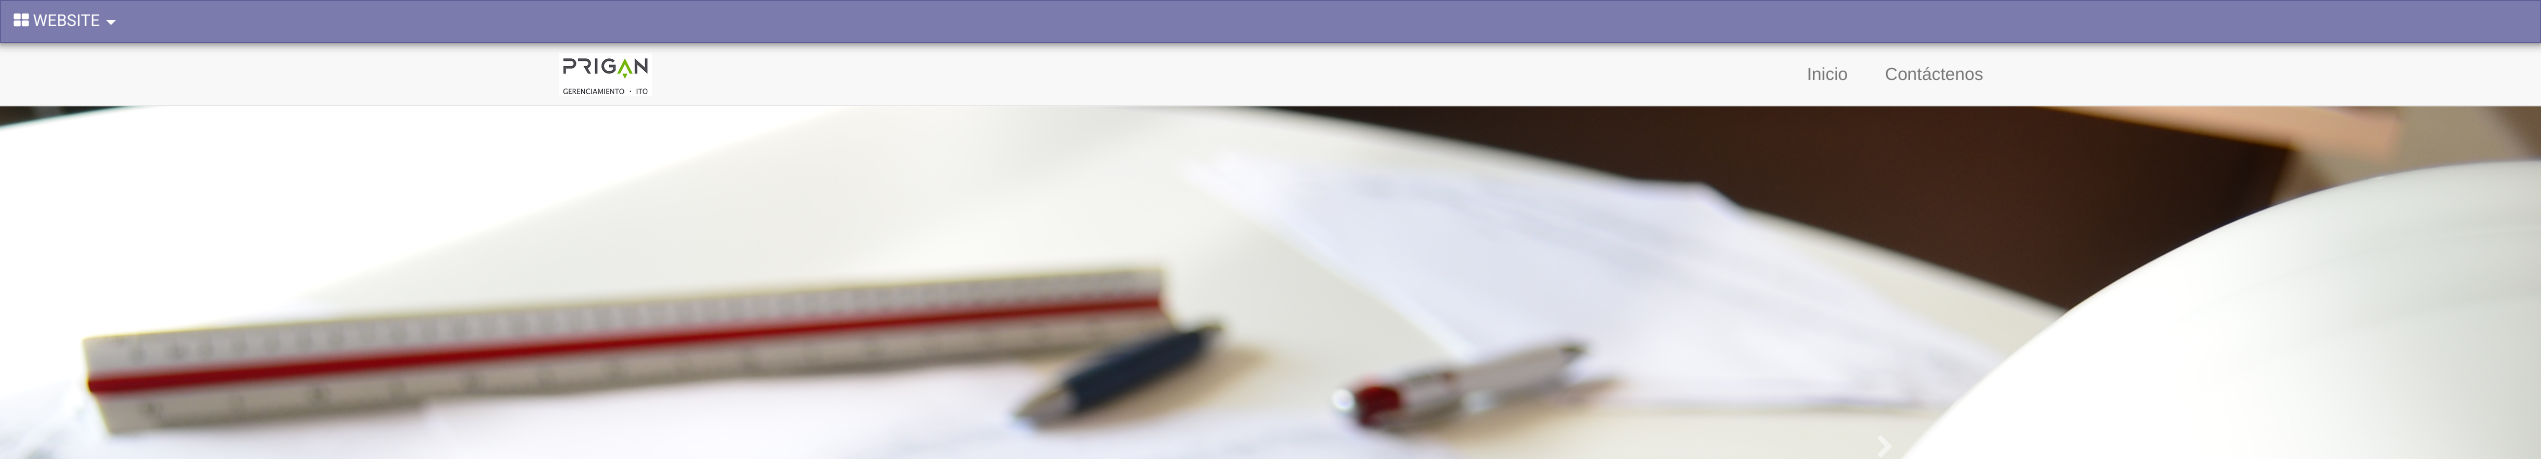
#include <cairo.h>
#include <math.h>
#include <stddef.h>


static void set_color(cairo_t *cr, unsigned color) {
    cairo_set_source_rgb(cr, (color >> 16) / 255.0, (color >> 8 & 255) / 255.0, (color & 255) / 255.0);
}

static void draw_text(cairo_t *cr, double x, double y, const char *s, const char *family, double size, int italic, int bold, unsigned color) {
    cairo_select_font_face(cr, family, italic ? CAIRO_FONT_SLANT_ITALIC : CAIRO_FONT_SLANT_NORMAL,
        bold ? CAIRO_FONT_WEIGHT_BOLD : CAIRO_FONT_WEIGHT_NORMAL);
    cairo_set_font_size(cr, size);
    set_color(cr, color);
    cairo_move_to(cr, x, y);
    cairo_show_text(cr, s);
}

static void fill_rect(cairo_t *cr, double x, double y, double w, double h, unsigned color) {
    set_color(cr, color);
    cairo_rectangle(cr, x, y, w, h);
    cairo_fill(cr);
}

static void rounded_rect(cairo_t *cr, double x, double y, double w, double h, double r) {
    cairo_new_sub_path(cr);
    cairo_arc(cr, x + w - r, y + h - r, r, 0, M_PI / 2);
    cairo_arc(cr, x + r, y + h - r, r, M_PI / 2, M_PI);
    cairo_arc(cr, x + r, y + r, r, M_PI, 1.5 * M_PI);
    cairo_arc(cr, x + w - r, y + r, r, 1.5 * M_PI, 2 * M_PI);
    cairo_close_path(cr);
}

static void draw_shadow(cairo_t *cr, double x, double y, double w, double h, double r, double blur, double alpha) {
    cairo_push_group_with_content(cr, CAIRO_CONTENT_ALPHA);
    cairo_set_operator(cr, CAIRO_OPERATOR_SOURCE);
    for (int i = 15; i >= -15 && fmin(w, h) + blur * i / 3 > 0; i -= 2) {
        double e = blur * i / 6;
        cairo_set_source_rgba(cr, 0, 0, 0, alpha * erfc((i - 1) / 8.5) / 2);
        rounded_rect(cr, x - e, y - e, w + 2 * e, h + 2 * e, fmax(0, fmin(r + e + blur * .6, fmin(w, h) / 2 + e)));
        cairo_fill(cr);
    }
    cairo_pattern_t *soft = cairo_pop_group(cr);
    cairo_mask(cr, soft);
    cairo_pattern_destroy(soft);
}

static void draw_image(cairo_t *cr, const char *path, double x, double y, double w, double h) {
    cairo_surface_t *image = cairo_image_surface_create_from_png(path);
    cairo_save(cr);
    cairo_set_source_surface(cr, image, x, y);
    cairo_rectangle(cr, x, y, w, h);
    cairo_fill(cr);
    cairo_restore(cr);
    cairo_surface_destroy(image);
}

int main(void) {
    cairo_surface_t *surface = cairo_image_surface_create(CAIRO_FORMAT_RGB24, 2541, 459);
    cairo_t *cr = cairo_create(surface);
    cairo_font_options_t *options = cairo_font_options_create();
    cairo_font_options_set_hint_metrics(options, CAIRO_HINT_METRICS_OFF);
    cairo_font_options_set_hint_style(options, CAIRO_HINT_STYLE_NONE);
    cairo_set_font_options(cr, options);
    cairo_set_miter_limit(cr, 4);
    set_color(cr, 0xFFFFFF);
    cairo_paint(cr);
    fill_rect(cr, 0, 43, 2541, 62, 0xF8F8F8);
    draw_image(cr, "assets/img2.png", 559, 53, 93, 43);
    set_color(cr, 0x4C4C4C);
    draw_shadow(cr, 0, 0, 2541, 43, 0, 5, 1);
    set_color(cr, 0x7C7BAD);
    cairo_rectangle(cr, 0.5, 0.5, 2540, 42);
    cairo_fill_preserve(cr);
    set_color(cr, 0x5F5E97);
    cairo_set_line_width(cr, 1);
    cairo_stroke(cr);
    draw_image(cr, "assets/img1.png", 13, 13, 16, 14);
    draw_text(cr, 33, 26, "WEBSITE", "Roboto", 16.25, 0, 0, 0xFFFFFF);
    cairo_new_path(cr);
    cairo_move_to(cr, 106, 20);
    cairo_line_to(cr, 116, 20);
    cairo_line_to(cr, 111, 25);
    cairo_close_path(cr);
    cairo_fill(cr);
    fill_rect(cr, 0, 105, 2541, 1, 0xE7E7E7);
    draw_text(cr, 1807, 80, "Inicio", "Liberation Sans", 17.5, 0, 0, 0x777777);
    draw_text(cr, 1885, 80, "Contáctenos", "Liberation Sans", 17.5, 0, 0, 0x777777);
    draw_image(cr, "assets/img3.png", 0, 106, 2541, 353);
    draw_image(cr, "assets/img4.png", 1877, 435, 15, 23);
    cairo_surface_write_to_png(surface, "output.png");
    cairo_font_options_destroy(options);
    cairo_destroy(cr);
    cairo_surface_destroy(surface);
    return 0;
}
